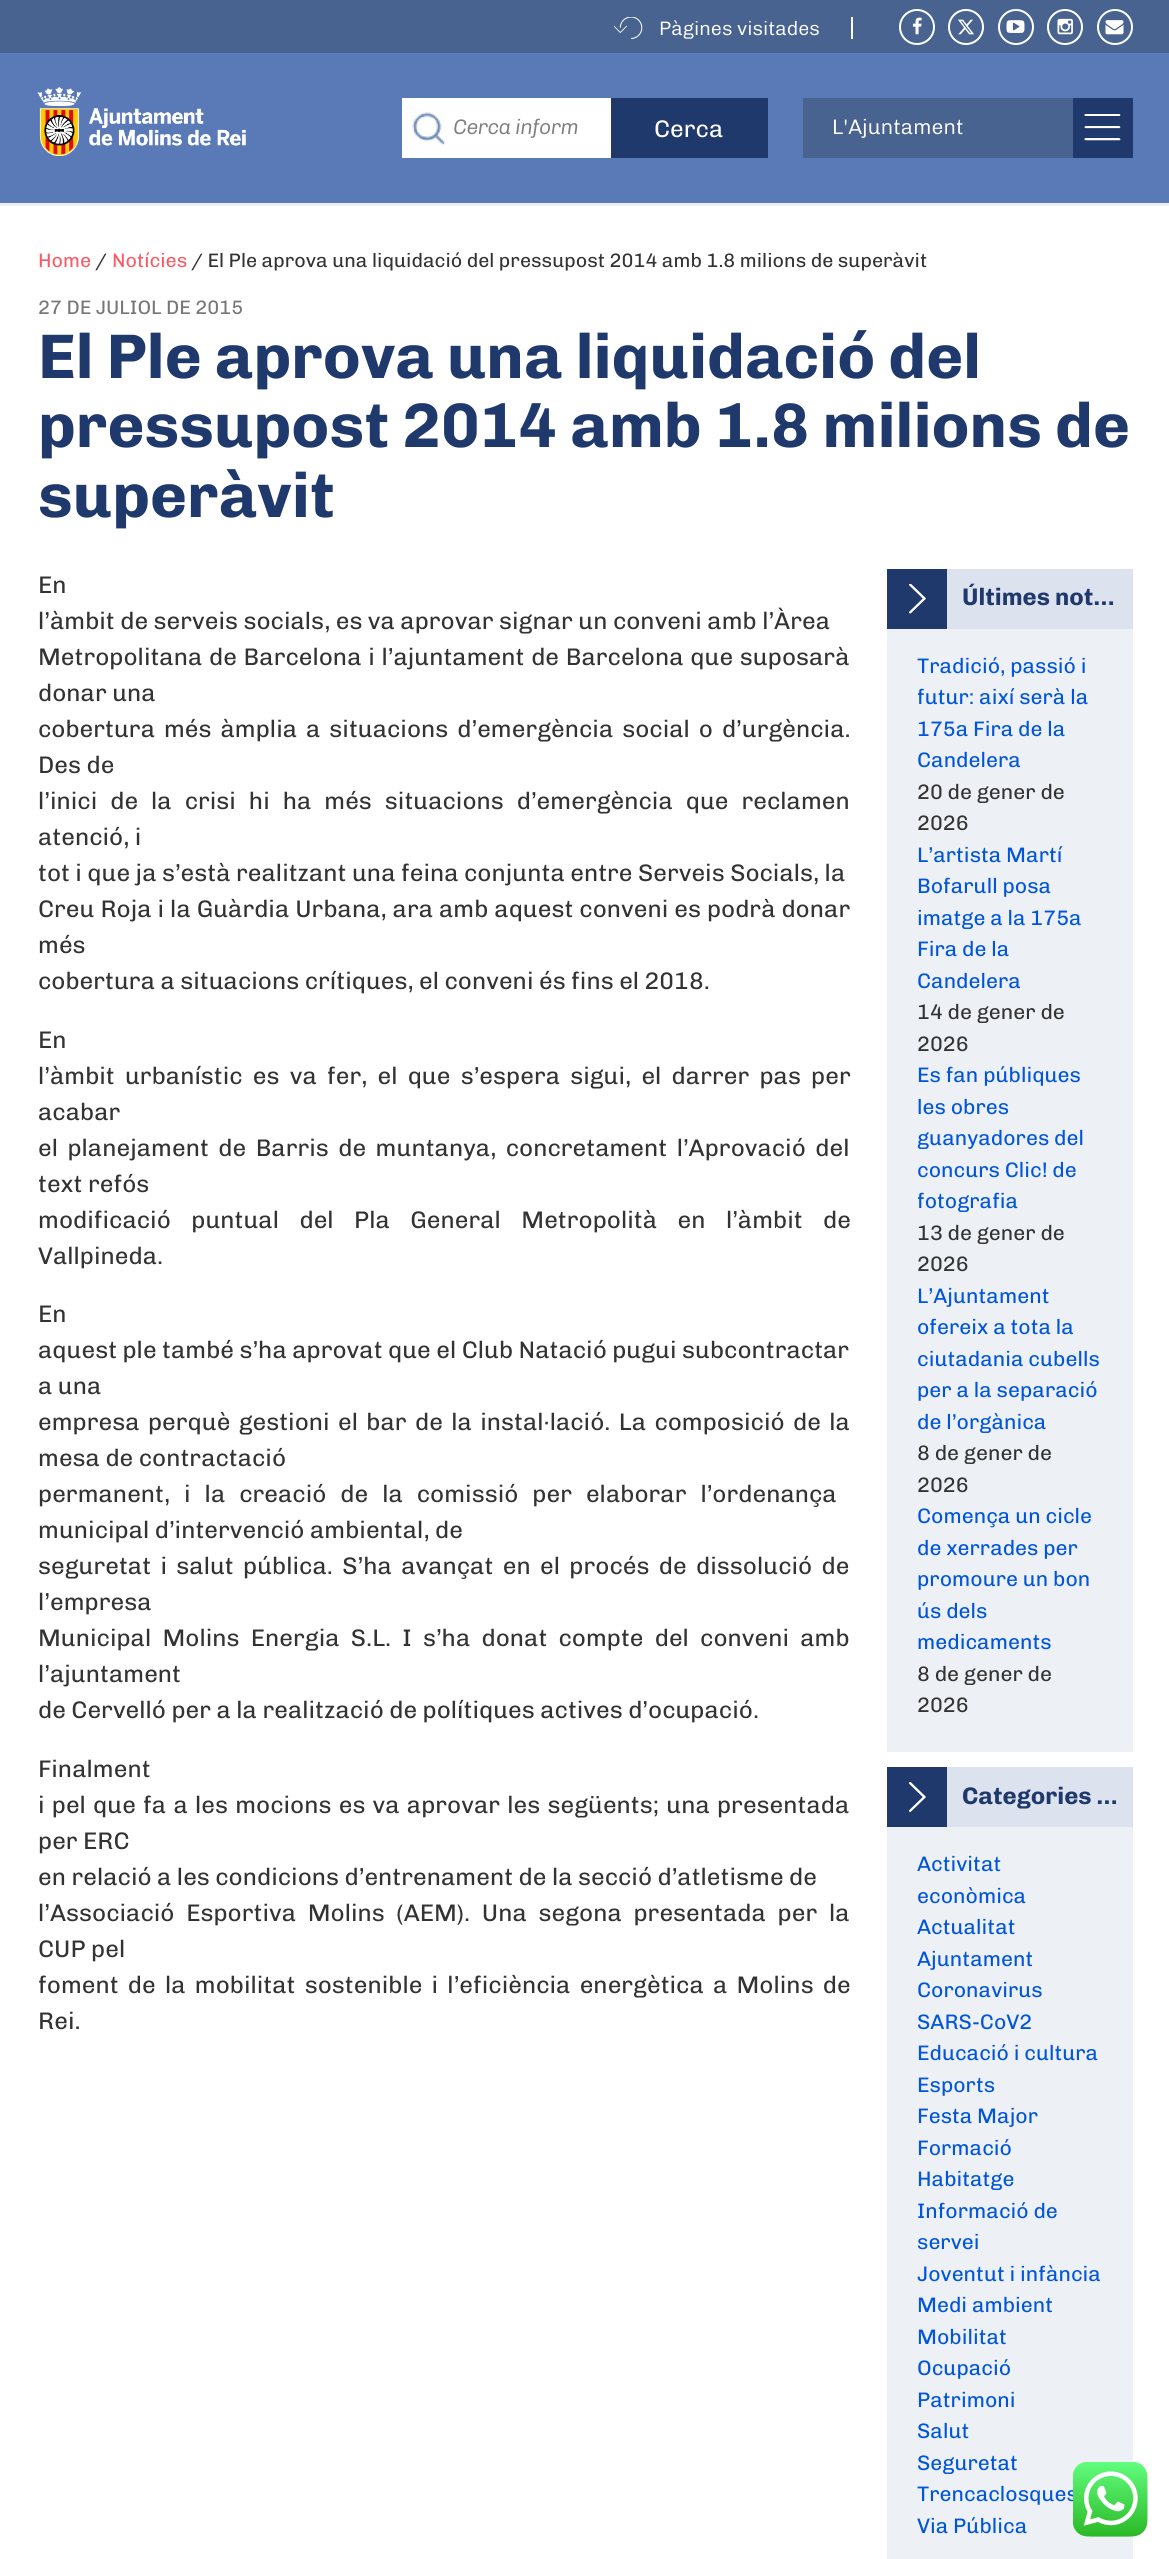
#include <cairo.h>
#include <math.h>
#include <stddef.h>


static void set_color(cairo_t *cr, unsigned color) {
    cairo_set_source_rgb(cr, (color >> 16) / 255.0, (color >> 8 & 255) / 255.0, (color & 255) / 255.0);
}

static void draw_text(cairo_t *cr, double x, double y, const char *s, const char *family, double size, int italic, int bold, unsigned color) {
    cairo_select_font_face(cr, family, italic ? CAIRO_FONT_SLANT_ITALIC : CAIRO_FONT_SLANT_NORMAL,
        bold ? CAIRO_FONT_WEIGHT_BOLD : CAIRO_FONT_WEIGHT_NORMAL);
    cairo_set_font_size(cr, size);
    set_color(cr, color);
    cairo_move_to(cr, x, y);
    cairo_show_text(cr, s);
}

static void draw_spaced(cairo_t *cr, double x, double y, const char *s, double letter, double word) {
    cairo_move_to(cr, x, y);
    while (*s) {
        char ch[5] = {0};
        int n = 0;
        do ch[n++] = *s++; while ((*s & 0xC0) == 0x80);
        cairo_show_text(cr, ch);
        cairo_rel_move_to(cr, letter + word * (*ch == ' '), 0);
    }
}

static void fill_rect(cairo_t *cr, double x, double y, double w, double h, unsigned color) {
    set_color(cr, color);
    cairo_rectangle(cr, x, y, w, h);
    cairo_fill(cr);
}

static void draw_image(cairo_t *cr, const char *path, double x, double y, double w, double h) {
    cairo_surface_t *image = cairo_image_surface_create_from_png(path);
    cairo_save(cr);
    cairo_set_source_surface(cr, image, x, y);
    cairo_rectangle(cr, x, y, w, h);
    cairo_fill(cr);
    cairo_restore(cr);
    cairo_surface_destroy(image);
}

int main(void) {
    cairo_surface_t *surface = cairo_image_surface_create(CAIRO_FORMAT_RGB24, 1169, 2559);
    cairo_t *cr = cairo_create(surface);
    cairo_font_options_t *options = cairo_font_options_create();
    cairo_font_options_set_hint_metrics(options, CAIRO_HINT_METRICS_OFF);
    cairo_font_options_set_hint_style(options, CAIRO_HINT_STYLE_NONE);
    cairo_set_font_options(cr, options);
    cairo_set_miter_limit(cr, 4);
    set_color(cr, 0xFFFFFF);
    cairo_paint(cr);
    fill_rect(cr, 0, 53, 1169, 150, 0x5A7AB7);
    fill_rect(cr, 0, 203, 1169, 3, 0xEDF0F5);
    fill_rect(cr, 0, 0, 1169, 53, 0x486390);
    draw_image(cr, "assets/img1.png", 614, 17, 29, 22);
    fill_rect(cr, 851, 17, 2, 22, 0xFFFFFF);
    draw_text(cr, 659, 35, "Pàgines visitades", "Chivo Light", 19.5, 0, 0, 0xFFFFFF);
    cairo_new_path(cr);
    cairo_arc(cr, 917, 27, 17, 0, 2 * M_PI);
    cairo_stroke(cr);
    draw_image(cr, "assets/img2.png", 912, 17, 10, 18);
    cairo_arc(cr, 966, 27, 17, 0, 2 * M_PI);
    cairo_stroke(cr);
    draw_image(cr, "assets/img3.png", 958, 19, 16, 16);
    cairo_arc(cr, 1016, 27, 17, 0, 2 * M_PI);
    cairo_stroke(cr);
    draw_image(cr, "assets/img4.png", 1006, 20, 19, 13);
    cairo_arc(cr, 1065, 27, 17, 0, 2 * M_PI);
    cairo_stroke(cr);
    draw_image(cr, "assets/img5.png", 1057, 18, 16, 17);
    cairo_arc(cr, 1115, 27, 17, 0, 2 * M_PI);
    cairo_stroke(cr);
    draw_image(cr, "assets/img6.png", 1105, 20, 19, 15);
    draw_image(cr, "assets/img7.png", 37, 87, 209, 69);
    fill_rect(cr, 402, 98, 209, 60, 0xFFFFFF);
    draw_image(cr, "assets/img8.png", 411, 111, 35, 34);
    cairo_select_font_face(cr, "Chivo Light", CAIRO_FONT_SLANT_ITALIC, CAIRO_FONT_WEIGHT_NORMAL);
    cairo_set_font_size(cr, 21);
    set_color(cr, 0x808080);
    draw_spaced(cr, 453, 134, "Cerca inform", -0.5, 0);
    fill_rect(cr, 611, 98, 157, 60, 0x1F396D);
    draw_text(cr, 654, 137, "Cerca", "Chivo", 24, 0, 0, 0xFFFFFF);
    fill_rect(cr, 803, 98, 270, 60, 0x486390);
    draw_text(cr, 832, 134, "L'Ajuntament", "Chivo Light", 21, 0, 0, 0xFFFFFF);
    fill_rect(cr, 1073, 98, 60, 60, 0x1F396D);
    draw_image(cr, "assets/img9.png", 1084, 114, 37, 27);
    draw_text(cr, 38, 267, "Home", "Chivo", 19.5, 0, 0, 0xF75C65);
    draw_text(cr, 95, 267, "/", "Chivo", 19.5, 0, 0, 0x333333);
    draw_text(cr, 112, 267, "Notícies", "Chivo", 19.5, 0, 0, 0xF75C65);
    draw_text(cr, 191, 267, "/ El Ple aprova una liquidació del pressupost 2014 amb 1.8 milions de superàvit", "Chivo", 19.5, 0, 0, 0x333333);
    draw_text(cr, 38, 314, "27 DE JULIOL DE 2015", "Chivo", 19.5, 0, 0, 0x777777);
    draw_text(cr, 38, 378, "El Ple aprova una liquidació del", "Chivo", 63, 0, 1, 0x1F396D);
    draw_text(cr, 38, 447, "pressupost 2014 amb 1.8 milions de", "Chivo", 63, 0, 1, 0x1F396D);
    draw_text(cr, 38, 517, "superàvit", "Chivo", 63, 0, 1, 0x1F396D);
    draw_text(cr, 38, 593, "En", "Chivo", 24, 0, 0, 0x333333);
    draw_text(cr, 38, 629, "l’àmbit de serveis socials, es va aprovar signar un conveni amb l’Àrea", "Chivo", 24, 0, 0, 0x333333);
    draw_spaced(cr, 38, 665, "Metropolitana de Barcelona i l’ajuntament de Barcelona que suposarà", 0, 1.25);
    draw_text(cr, 38, 701, "donar una", "Chivo", 24, 0, 0, 0x333333);
    draw_spaced(cr, 38, 737, "cobertura més àmplia a situacions d’emergència social o d’urgència.", 0, 3.5);
    draw_text(cr, 38, 773, "Des de", "Chivo", 24, 0, 0, 0x333333);
    draw_spaced(cr, 38, 809, "l’inici de la crisi hi ha més situacions d’emergència que reclamen", 0, 7.5);
    draw_text(cr, 38, 845, "atenció, i", "Chivo", 24, 0, 0, 0x333333);
    draw_text(cr, 38, 881, "tot i que ja s’està realitzant una feina conjunta entre Serveis Socials, la", "Chivo", 24, 0, 0, 0x333333);
    draw_spaced(cr, 38, 917, "Creu Roja i la Guàrdia Urbana, ara amb aquest conveni es podrà donar", 0, 0.5);
    draw_text(cr, 38, 953, "més", "Chivo", 24, 0, 0, 0x333333);
    draw_text(cr, 38, 989, "cobertura a situacions crítiques, el conveni és fins el 2018.", "Chivo", 24, 0, 0, 0x333333);
    draw_text(cr, 38, 1048, "En", "Chivo", 24, 0, 0, 0x333333);
    draw_spaced(cr, 38, 1084, "l’àmbit urbanístic es va fer, el que s’espera sigui, el darrer pas per", 0, 4.75);
    draw_text(cr, 38, 1120, "acabar", "Chivo", 24, 0, 0, 0x333333);
    draw_spaced(cr, 38, 1156, "el planejament de Barris de muntanya, concretament l’Aprovació del", 0, 4);
    draw_text(cr, 38, 1192, "text refós", "Chivo", 24, 0, 0, 0x333333);
    draw_spaced(cr, 38, 1228, "modificació puntual del Pla General Metropolità en l’àmbit de", 0, 15);
    draw_text(cr, 38, 1264, "Vallpineda.", "Chivo", 24, 0, 0, 0x333333);
    draw_text(cr, 38, 1322, "En", "Chivo", 24, 0, 0, 0x333333);
    draw_text(cr, 38, 1358, "aquest ple també s’ha aprovat que el Club Natació pugui subcontractar", "Chivo", 24, 0, 0, 0x333333);
    draw_text(cr, 38, 1394, "a una", "Chivo", 24, 0, 0, 0x333333);
    draw_spaced(cr, 38, 1430, "empresa perquè gestioni el bar de la instal·lació. La composició de la", 0, 2.9);
    draw_text(cr, 38, 1466, "mesa de contractació", "Chivo", 24, 0, 0, 0x333333);
    draw_spaced(cr, 38, 1502, "permanent, i la creació de la comissió per elaborar l’ordenança", 0, 8.5);
    draw_text(cr, 38, 1538, "municipal d’intervenció ambiental, de", "Chivo", 24, 0, 0, 0x333333);
    draw_spaced(cr, 38, 1574, "seguretat i salut pública. S’ha avançat en el procés de dissolució de", 0, 3.9);
    draw_text(cr, 38, 1610, "l’empresa", "Chivo", 24, 0, 0, 0x333333);
    draw_spaced(cr, 38, 1646, "Municipal Molins Energia S.L. I s’ha donat compte del conveni amb", 0, 5.75);
    draw_text(cr, 38, 1682, "l’ajuntament", "Chivo", 24, 0, 0, 0x333333);
    draw_text(cr, 38, 1718, "de Cervelló per a la realització de polítiques actives d’ocupació.", "Chivo", 24, 0, 0, 0x333333);
    draw_text(cr, 38, 1777, "Finalment", "Chivo", 24, 0, 0, 0x333333);
    draw_spaced(cr, 38, 1813, "i pel que fa a les mocions es va aprovar les següents; una presentada", 0, 1.75);
    draw_text(cr, 38, 1849, "per ERC", "Chivo", 24, 0, 0, 0x333333);
    draw_text(cr, 38, 1885, "en relació a les condicions d’entrenament de la secció d’atletisme de", "Chivo", 24, 0, 0, 0x333333);
    draw_spaced(cr, 38, 1921, "l’Associació Esportiva Molins (AEM). Una segona presentada per la", 0, 6.25);
    draw_text(cr, 38, 1957, "CUP pel", "Chivo", 24, 0, 0, 0x333333);
    draw_spaced(cr, 38, 1993, "foment de la mobilitat sostenible i l’eficiència energètica a Molins de", 0, 3.75);
    draw_text(cr, 38, 2029, "Rei.", "Chivo", 24, 0, 0, 0x333333);
    fill_rect(cr, 887, 629, 246, 1123, 0xEDF0F5);
    fill_rect(cr, 947, 569, 186, 60, 0xDCE2EE);
    fill_rect(cr, 887, 569, 60, 60, 0x1F396D);
    draw_image(cr, "assets/img10.png", 909, 584, 17, 30);
    draw_text(cr, 962, 605, "Últimes not…", "Chivo", 24, 0, 1, 0x1F396D);
    draw_text(cr, 917, 673, "Tradició, passió i", "Chivo", 21, 0, 0, 0x0055DB);
    draw_text(cr, 917, 704, "futur: així serà la", "Chivo", 21, 0, 0, 0x0055DB);
    draw_text(cr, 917, 736, "175a Fira de la", "Chivo", 21, 0, 0, 0x0055DB);
    draw_text(cr, 917, 767, "Candelera", "Chivo", 21, 0, 0, 0x0055DB);
    draw_text(cr, 917, 799, "20 de gener de", "Chivo", 21, 0, 0, 0x333333);
    draw_text(cr, 917, 830, "2026", "Chivo", 21, 0, 0, 0x333333);
    draw_text(cr, 917, 862, "L’artista Martí", "Chivo", 21, 0, 0, 0x0055DB);
    draw_text(cr, 917, 893, "Bofarull posa", "Chivo", 21, 0, 0, 0x0055DB);
    draw_text(cr, 917, 925, "imatge a la 175a", "Chivo", 21, 0, 0, 0x0055DB);
    draw_text(cr, 917, 956, "Fira de la", "Chivo", 21, 0, 0, 0x0055DB);
    draw_text(cr, 917, 988, "Candelera", "Chivo", 21, 0, 0, 0x0055DB);
    draw_text(cr, 917, 1019, "14 de gener de", "Chivo", 21, 0, 0, 0x333333);
    draw_text(cr, 917, 1051, "2026", "Chivo", 21, 0, 0, 0x333333);
    draw_text(cr, 917, 1082, "Es fan públiques", "Chivo", 21, 0, 0, 0x0055DB);
    draw_text(cr, 917, 1114, "les obres", "Chivo", 21, 0, 0, 0x0055DB);
    draw_text(cr, 917, 1145, "guanyadores del", "Chivo", 21, 0, 0, 0x0055DB);
    draw_text(cr, 917, 1177, "concurs Clic! de", "Chivo", 21, 0, 0, 0x0055DB);
    draw_text(cr, 917, 1208, "fotografia", "Chivo", 21, 0, 0, 0x0055DB);
    draw_text(cr, 917, 1240, "13 de gener de", "Chivo", 21, 0, 0, 0x333333);
    draw_text(cr, 917, 1271, "2026", "Chivo", 21, 0, 0, 0x333333);
    draw_text(cr, 917, 1303, "L’Ajuntament", "Chivo", 21, 0, 0, 0x0055DB);
    draw_text(cr, 917, 1334, "ofereix a tota la", "Chivo", 21, 0, 0, 0x0055DB);
    draw_text(cr, 917, 1366, "ciutadania cubells", "Chivo", 21, 0, 0, 0x0055DB);
    draw_text(cr, 917, 1397, "per a la separació", "Chivo", 21, 0, 0, 0x0055DB);
    draw_text(cr, 917, 1429, "de l’orgànica", "Chivo", 21, 0, 0, 0x0055DB);
    draw_text(cr, 917, 1460, "8 de gener de", "Chivo", 21, 0, 0, 0x333333);
    draw_text(cr, 917, 1492, "2026", "Chivo", 21, 0, 0, 0x333333);
    draw_text(cr, 917, 1523, "Comença un cicle", "Chivo", 21, 0, 0, 0x0055DB);
    draw_text(cr, 917, 1555, "de xerrades per", "Chivo", 21, 0, 0, 0x0055DB);
    draw_text(cr, 917, 1586, "promoure un bon", "Chivo", 21, 0, 0, 0x0055DB);
    draw_text(cr, 917, 1618, "ús dels", "Chivo", 21, 0, 0, 0x0055DB);
    draw_text(cr, 917, 1649, "medicaments", "Chivo", 21, 0, 0, 0x0055DB);
    draw_text(cr, 917, 1681, "8 de gener de", "Chivo", 21, 0, 0, 0x333333);
    draw_text(cr, 917, 1712, "2026", "Chivo", 21, 0, 0, 0x333333);
    fill_rect(cr, 887, 1827, 246, 732, 0xEDF0F5);
    fill_rect(cr, 947, 1767, 186, 60, 0xDCE2EE);
    fill_rect(cr, 887, 1767, 60, 60, 0x1F396D);
    draw_image(cr, "assets/img11.png", 909, 1782, 17, 30);
    draw_text(cr, 962, 1804, "Categories …", "Chivo", 24, 0, 1, 0x1F396D);
    draw_text(cr, 917, 1871, "Activitat", "Chivo", 21, 0, 0, 0x0055DB);
    draw_text(cr, 917, 1903, "econòmica", "Chivo", 21, 0, 0, 0x0055DB);
    draw_text(cr, 917, 1934, "Actualitat", "Chivo", 21, 0, 0, 0x0055DB);
    draw_text(cr, 917, 1966, "Ajuntament", "Chivo", 21, 0, 0, 0x0055DB);
    draw_text(cr, 917, 1997, "Coronavirus", "Chivo", 21, 0, 0, 0x0055DB);
    draw_text(cr, 917, 2029, "SARS-CoV2", "Chivo", 21, 0, 0, 0x0055DB);
    draw_text(cr, 917, 2060, "Educació i cultura", "Chivo", 21, 0, 0, 0x0055DB);
    draw_text(cr, 917, 2092, "Esports", "Chivo", 21, 0, 0, 0x0055DB);
    draw_text(cr, 917, 2123, "Festa Major", "Chivo", 21, 0, 0, 0x0055DB);
    draw_text(cr, 917, 2155, "Formació", "Chivo", 21, 0, 0, 0x0055DB);
    draw_text(cr, 917, 2186, "Habitatge", "Chivo", 21, 0, 0, 0x0055DB);
    draw_text(cr, 917, 2218, "Informació de", "Chivo", 21, 0, 0, 0x0055DB);
    draw_text(cr, 917, 2249, "servei", "Chivo", 21, 0, 0, 0x0055DB);
    draw_text(cr, 917, 2281, "Joventut i infància", "Chivo", 21, 0, 0, 0x0055DB);
    draw_text(cr, 917, 2312, "Medi ambient", "Chivo", 21, 0, 0, 0x0055DB);
    draw_text(cr, 917, 2344, "Mobilitat", "Chivo", 21, 0, 0, 0x0055DB);
    draw_text(cr, 917, 2375, "Ocupació", "Chivo", 21, 0, 0, 0x0055DB);
    draw_text(cr, 917, 2407, "Patrimoni", "Chivo", 21, 0, 0, 0x0055DB);
    draw_text(cr, 917, 2438, "Salut", "Chivo", 21, 0, 0, 0x0055DB);
    draw_text(cr, 917, 2470, "Seguretat", "Chivo", 21, 0, 0, 0x0055DB);
    draw_text(cr, 917, 2501, "Trencaclosques", "Chivo", 21, 0, 0, 0x0055DB);
    draw_text(cr, 917, 2533, "Via Pública", "Chivo", 21, 0, 0, 0x0055DB);
    draw_image(cr, "assets/img12.png", 1073, 2462, 75, 75);
    cairo_surface_write_to_png(surface, "output.png");
    cairo_font_options_destroy(options);
    cairo_destroy(cr);
    cairo_surface_destroy(surface);
    return 0;
}
